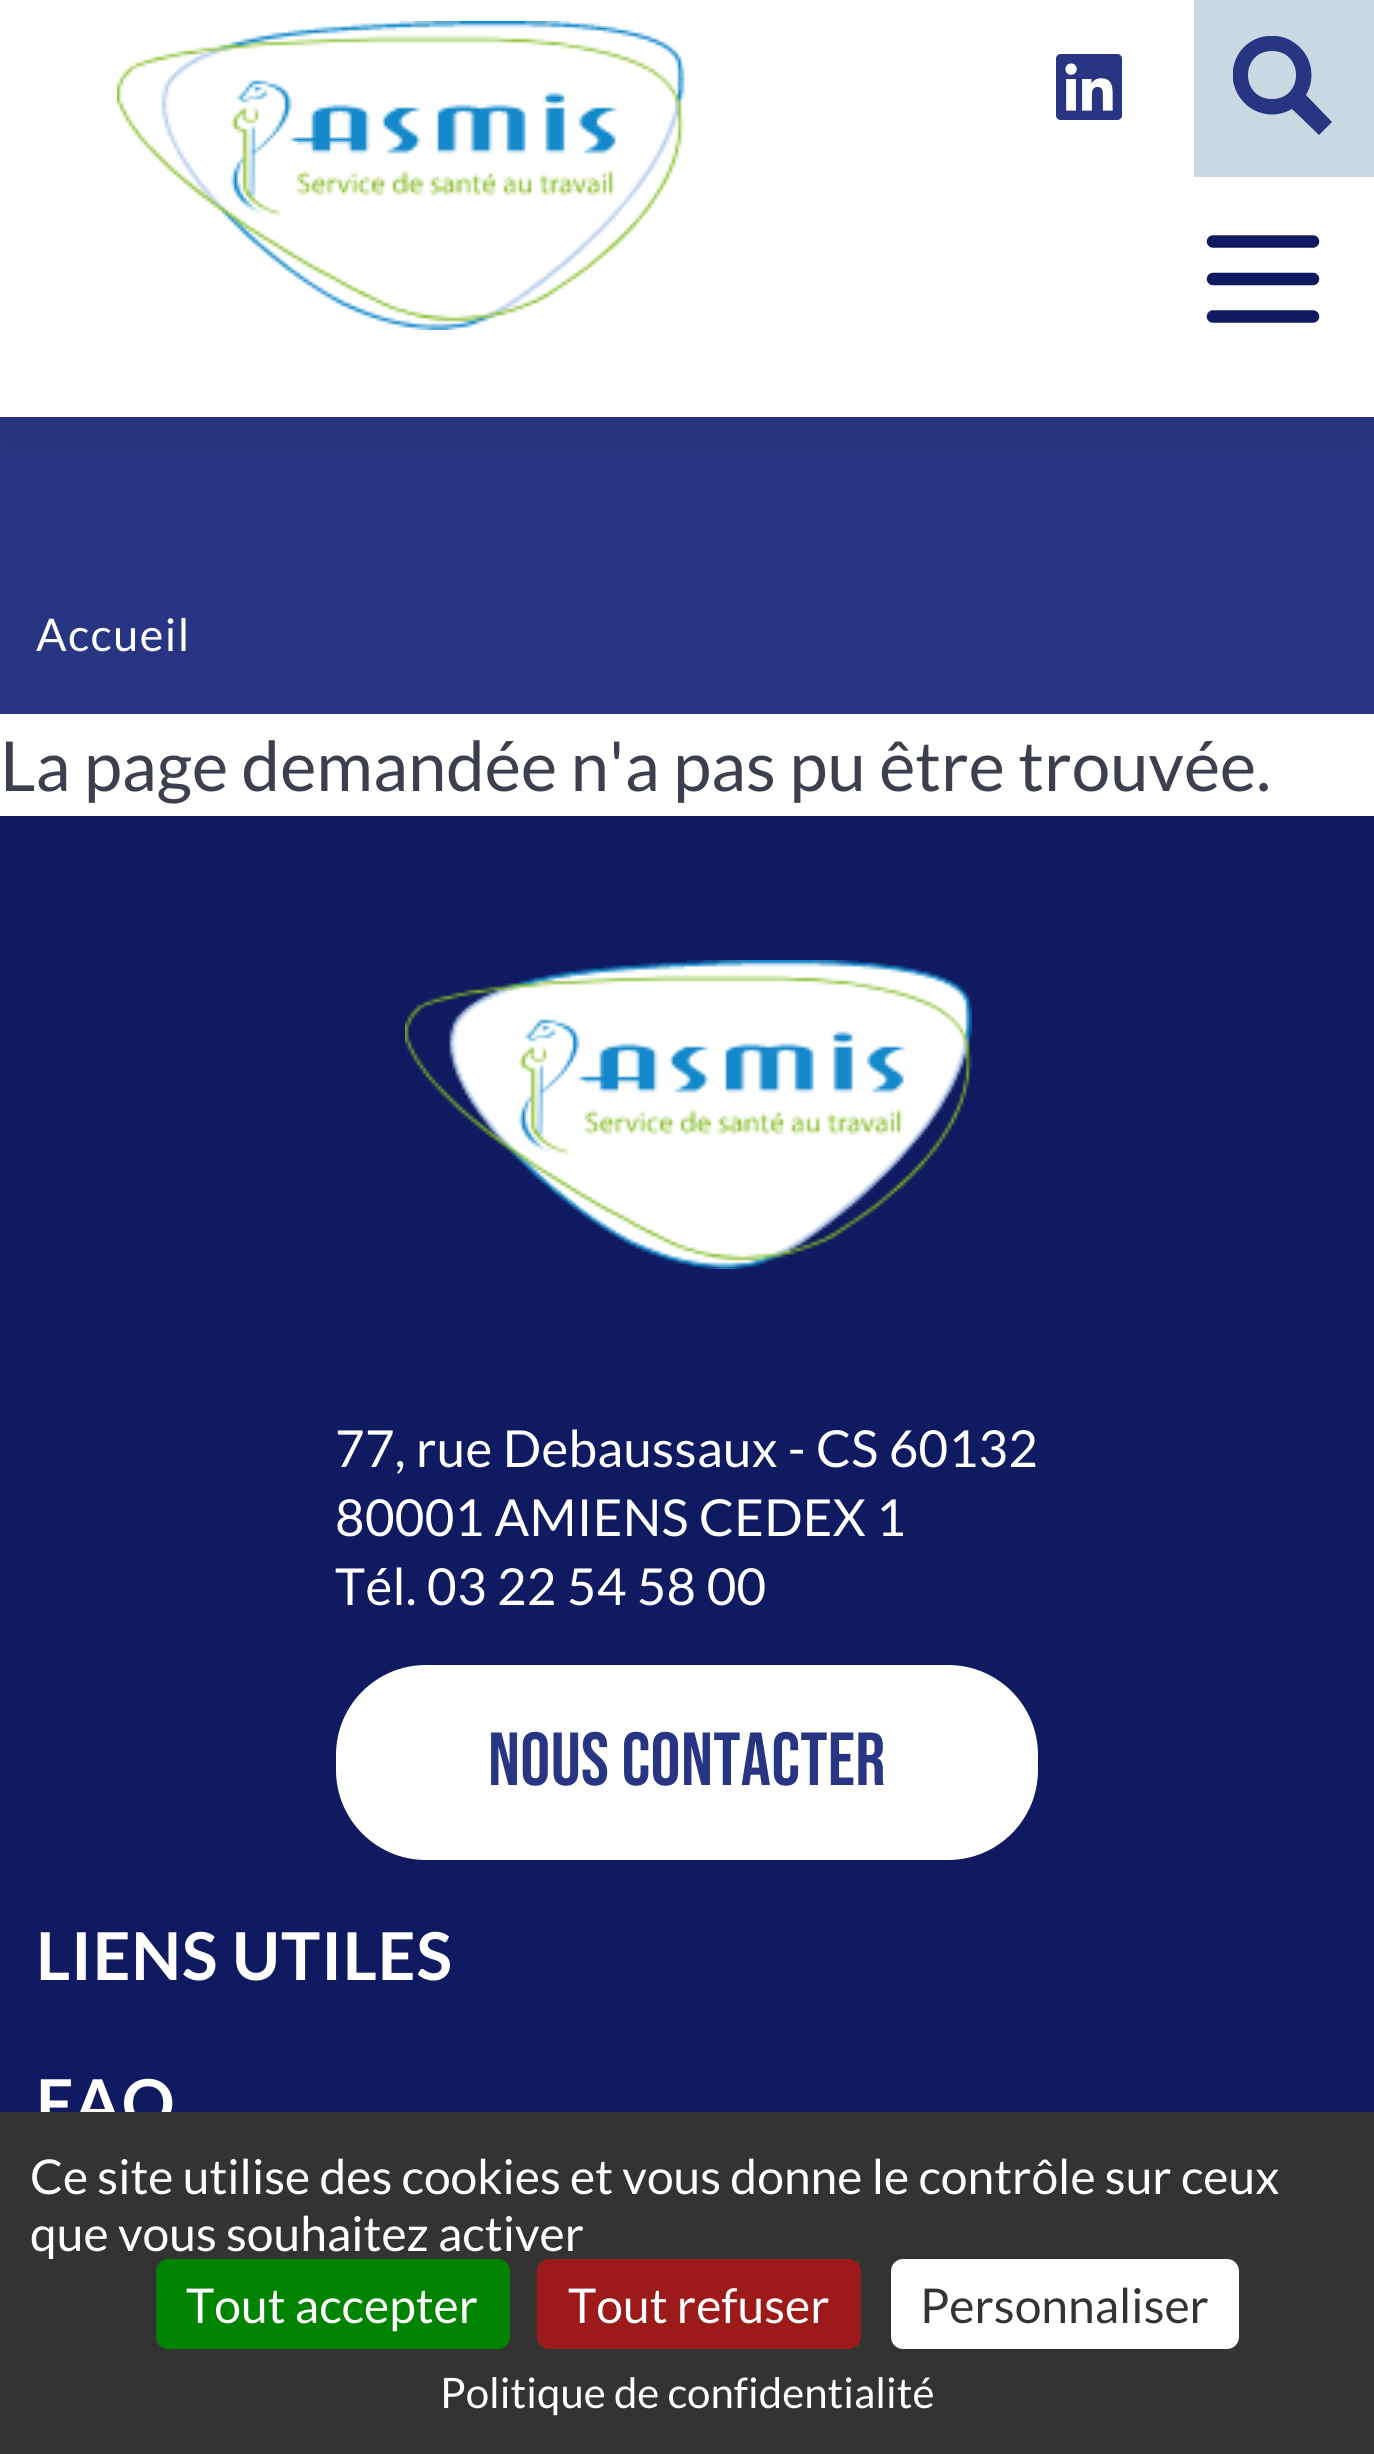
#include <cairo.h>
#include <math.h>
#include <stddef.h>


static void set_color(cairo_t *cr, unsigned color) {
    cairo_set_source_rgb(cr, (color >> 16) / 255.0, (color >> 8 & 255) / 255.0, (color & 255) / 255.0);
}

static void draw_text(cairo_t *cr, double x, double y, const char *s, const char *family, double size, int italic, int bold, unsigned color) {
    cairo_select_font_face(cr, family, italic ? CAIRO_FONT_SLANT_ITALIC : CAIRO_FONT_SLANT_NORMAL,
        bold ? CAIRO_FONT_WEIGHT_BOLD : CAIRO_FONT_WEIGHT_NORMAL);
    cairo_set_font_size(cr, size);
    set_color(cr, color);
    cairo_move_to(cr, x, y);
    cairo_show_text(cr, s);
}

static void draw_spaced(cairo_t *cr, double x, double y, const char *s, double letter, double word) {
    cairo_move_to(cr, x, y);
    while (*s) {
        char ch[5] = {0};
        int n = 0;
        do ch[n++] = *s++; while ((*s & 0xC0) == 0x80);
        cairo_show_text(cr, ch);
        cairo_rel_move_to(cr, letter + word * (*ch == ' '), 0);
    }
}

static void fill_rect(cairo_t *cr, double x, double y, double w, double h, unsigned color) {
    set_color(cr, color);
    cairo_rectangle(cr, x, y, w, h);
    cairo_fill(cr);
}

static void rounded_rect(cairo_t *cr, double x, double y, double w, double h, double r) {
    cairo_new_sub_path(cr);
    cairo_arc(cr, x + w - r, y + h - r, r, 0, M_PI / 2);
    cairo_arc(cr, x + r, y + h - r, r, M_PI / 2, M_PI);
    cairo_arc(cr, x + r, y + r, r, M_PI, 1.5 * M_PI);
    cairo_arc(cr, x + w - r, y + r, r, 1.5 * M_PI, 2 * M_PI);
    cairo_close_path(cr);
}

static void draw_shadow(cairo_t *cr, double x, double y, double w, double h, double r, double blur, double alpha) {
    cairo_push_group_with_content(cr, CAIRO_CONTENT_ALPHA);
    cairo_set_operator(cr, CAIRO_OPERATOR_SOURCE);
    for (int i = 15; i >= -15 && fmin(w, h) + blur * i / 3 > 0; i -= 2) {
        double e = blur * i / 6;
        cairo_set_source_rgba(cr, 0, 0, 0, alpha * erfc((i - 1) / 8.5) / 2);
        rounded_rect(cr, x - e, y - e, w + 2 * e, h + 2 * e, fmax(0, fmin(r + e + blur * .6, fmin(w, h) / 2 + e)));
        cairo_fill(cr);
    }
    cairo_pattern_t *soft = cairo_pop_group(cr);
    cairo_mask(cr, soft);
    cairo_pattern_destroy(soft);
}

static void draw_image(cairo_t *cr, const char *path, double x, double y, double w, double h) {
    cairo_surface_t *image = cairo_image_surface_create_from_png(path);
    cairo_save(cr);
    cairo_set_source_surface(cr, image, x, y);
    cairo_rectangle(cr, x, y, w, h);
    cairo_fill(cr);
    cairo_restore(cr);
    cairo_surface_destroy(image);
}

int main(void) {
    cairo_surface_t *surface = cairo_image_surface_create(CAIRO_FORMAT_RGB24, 1374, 2454);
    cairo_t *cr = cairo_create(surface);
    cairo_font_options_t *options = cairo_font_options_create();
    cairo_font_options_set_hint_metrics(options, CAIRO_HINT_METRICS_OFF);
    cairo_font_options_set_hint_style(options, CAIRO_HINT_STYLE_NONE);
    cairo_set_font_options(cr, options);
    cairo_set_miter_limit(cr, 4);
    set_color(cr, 0xFFFFFF);
    cairo_paint(cr);
    fill_rect(cr, 0, 417, 1374, 297, 0x283583);
    set_color(cr, 0x000000);
    draw_shadow(cr, 0, -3, 1374, 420, 0, 30, 0.16);
    fill_rect(cr, 0, 0, 1374, 417, 0xFFFFFF);
    draw_image(cr, "assets/img1.png", 1056, 54, 66, 66);
    fill_rect(cr, 1194, 0, 180, 177, 0xC9D8E1);
    cairo_save(cr);
    cairo_rectangle(cr, 1233, 36, 102, 102);
    cairo_clip(cr);
    set_color(cr, 0x283583);
    cairo_new_path(cr);
    cairo_move_to(cr, 1306, 95);
    cairo_curve_to(cr, 1316, 78, 1312, 56, 1296, 44);
    cairo_curve_to(cr, 1281, 32, 1258, 33, 1244, 47);
    cairo_curve_to(cr, 1230, 61, 1229, 84, 1241, 99);
    cairo_curve_to(cr, 1253, 115, 1275, 119, 1292, 109);
    cairo_line_to(cr, 1319, 135);
    cairo_line_to(cr, 1332, 122);
    cairo_close_path(cr);
    cairo_move_to(cr, 1272, 99);
    cairo_curve_to(cr, 1240, 99, 1240, 51, 1272, 51);
    cairo_curve_to(cr, 1304, 51, 1304, 99, 1272, 99);
    cairo_close_path(cr);
    cairo_fill(cr);
    cairo_restore(cr);
    draw_image(cr, "assets/img2.png", 117, 21, 568, 309);
    cairo_new_path(cr);
    cairo_move_to(cr, 1213, 316.5);
    cairo_line_to(cr, 1313, 316.5);
    set_color(cr, 0x0F1A60);
    cairo_set_line_width(cr, 12.5);
    cairo_set_line_cap(cr, CAIRO_LINE_CAP_ROUND);
    cairo_stroke(cr);
    cairo_new_path(cr);
    cairo_move_to(cr, 1213, 279);
    cairo_line_to(cr, 1313, 279);
    cairo_stroke(cr);
    cairo_new_path(cr);
    cairo_move_to(cr, 1213, 241.5);
    cairo_line_to(cr, 1313, 241.5);
    cairo_stroke(cr);
    cairo_select_font_face(cr, "Lato", CAIRO_FONT_SLANT_NORMAL, CAIRO_FONT_WEIGHT_NORMAL);
    cairo_set_font_size(cr, 45);
    set_color(cr, 0xFFFFFF);
    draw_spaced(cr, 36, 651, "Accueil", 1.5, 0);
    draw_text(cr, 0, 791, "La page demandée n'a pas pu être trouvée.", "Lato", 69, 0, 0, 0x3C3F4E);
    fill_rect(cr, 0, 816, 1374, 1296, 0x0F1A60);
    draw_image(cr, "assets/img3.png", 405, 960, 567, 309);
    cairo_set_font_size(cr, 51);
    set_color(cr, 0xFFFFFF);
    draw_spaced(cr, 335, 1467, "77, rue Debaussaux - CS 60132", 0.3, 0);
    draw_spaced(cr, 335, 1536, "80001 AMIENS CEDEX 1", 0.3, 0);
    draw_spaced(cr, 335, 1605, "Tél. 03 22 54 58 00", 0.3, 0);
    rounded_rect(cr, 336, 1665, 702, 195, 90);
    cairo_fill(cr);
    cairo_select_font_face(cr, "Bebas Neue", CAIRO_FONT_SLANT_NORMAL, CAIRO_FONT_WEIGHT_NORMAL);
    cairo_set_font_size(cr, 75);
    set_color(cr, 0x283583);
    draw_spaced(cr, 488, 1785, "NOUS CONTACTER", 0.3, 0);
    cairo_select_font_face(cr, "Lato", CAIRO_FONT_SLANT_NORMAL, CAIRO_FONT_WEIGHT_BOLD);
    cairo_set_font_size(cr, 66);
    set_color(cr, 0xFFFFFF);
    draw_spaced(cr, 36, 1980, "LIENS UTILES", 0.9, 0);
    draw_spaced(cr, 36, 2127, "FAQ", 0.9, 0);
    fill_rect(cr, 0, 2112, 1374, 342, 0x333333);
    draw_text(cr, 30, 2194, "Ce site utilise des cookies et vous donne le contrôle sur ceux", "Lato", 48, 0, 0, 0xFFFFFF);
    cairo_save(cr);
    cairo_rectangle(cr, 0, 2145, 1374, 114);
    cairo_clip(cr);
    draw_text(cr, 30, 2251, "que vous souhaitez activer", "Lato", 48, 0, 0, 0xFFFFFF);
    cairo_restore(cr);
    set_color(cr, 0x008300);
    rounded_rect(cr, 156, 2259, 354, 90, 12);
    cairo_fill(cr);
    draw_text(cr, 186, 2323, "Tout accepter", "Lato", 48, 0, 0, 0xFFFFFF);
    set_color(cr, 0x9C1A1A);
    rounded_rect(cr, 537, 2259, 324, 90, 12);
    cairo_fill(cr);
    draw_text(cr, 568, 2323, "Tout refuser", "Lato", 48, 0, 0, 0xFFFFFF);
    rounded_rect(cr, 891, 2259, 348, 90, 12);
    cairo_fill(cr);
    draw_text(cr, 920, 2323, "Personnaliser", "Lato", 48, 0, 0, 0x333333);
    draw_text(cr, 440, 2408, "Politique de confidentialité", "Lato", 42, 0, 0, 0xFFFFFF);
    cairo_surface_write_to_png(surface, "output.png");
    cairo_font_options_destroy(options);
    cairo_destroy(cr);
    cairo_surface_destroy(surface);
    return 0;
}
